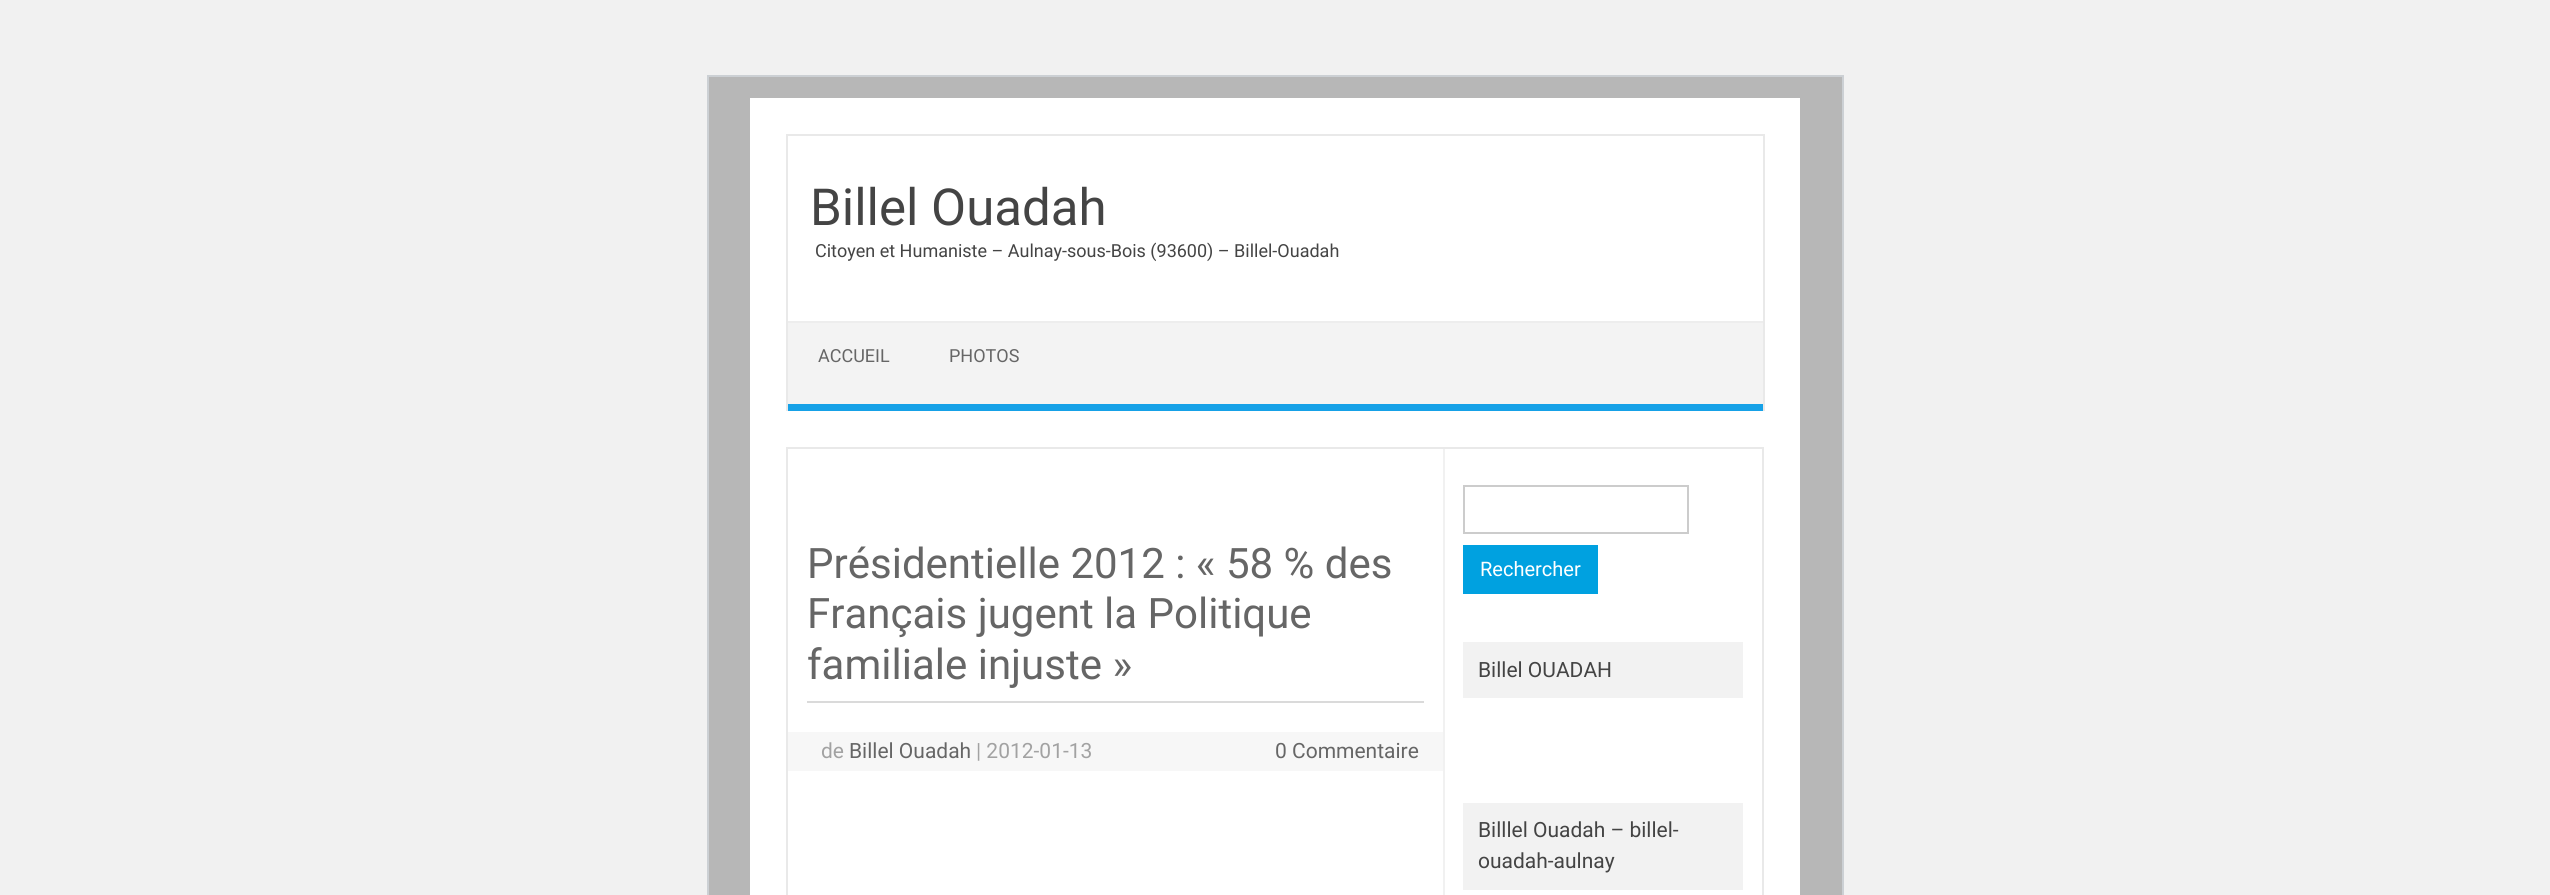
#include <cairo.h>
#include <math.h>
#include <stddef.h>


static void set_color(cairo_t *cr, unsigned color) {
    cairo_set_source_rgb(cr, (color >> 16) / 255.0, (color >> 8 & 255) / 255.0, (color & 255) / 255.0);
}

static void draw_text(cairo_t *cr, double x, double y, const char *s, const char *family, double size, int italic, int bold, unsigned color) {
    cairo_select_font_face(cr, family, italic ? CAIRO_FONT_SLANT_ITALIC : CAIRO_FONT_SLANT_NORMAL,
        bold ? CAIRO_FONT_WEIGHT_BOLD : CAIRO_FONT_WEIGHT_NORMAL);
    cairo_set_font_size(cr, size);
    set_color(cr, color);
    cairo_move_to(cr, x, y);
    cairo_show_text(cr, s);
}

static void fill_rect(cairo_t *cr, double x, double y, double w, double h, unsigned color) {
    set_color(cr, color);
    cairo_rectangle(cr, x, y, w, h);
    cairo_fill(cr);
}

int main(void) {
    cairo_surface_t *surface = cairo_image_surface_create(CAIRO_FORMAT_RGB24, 2550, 895);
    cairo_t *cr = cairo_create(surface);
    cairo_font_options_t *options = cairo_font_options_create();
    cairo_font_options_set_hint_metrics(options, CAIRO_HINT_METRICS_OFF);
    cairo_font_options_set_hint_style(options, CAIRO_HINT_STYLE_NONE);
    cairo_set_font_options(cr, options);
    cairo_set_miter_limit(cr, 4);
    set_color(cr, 0xF1F1F1);
    cairo_paint(cr);
    set_color(cr, 0xB7B7B7);
    cairo_rectangle(cr, 708, 76, 1135, 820);
    cairo_fill_preserve(cr);
    set_color(cr, 0xCCD0D4);
    cairo_stroke(cr);
    fill_rect(cr, 750, 98, 1050, 797, 0xFFFFFF);
    fill_rect(cr, 786, 134, 978, 2, 0xE9E9E9);
    fill_rect(cr, 1763, 134, 2, 277, 0xE9E9E9);
    fill_rect(cr, 786, 134, 2, 277, 0xE9E9E9);
    draw_text(cr, 810, 225, "Billel Ouadah", "Roboto", 51, 0, 0, 0x444444);
    draw_text(cr, 815, 257, "Citoyen et Humaniste – Aulnay-sous-Bois (93600) – Billel-Ouadah", "Roboto", 18, 0, 0, 0x444444);
    fill_rect(cr, 788, 323, 975, 81, 0xF3F3F3);
    fill_rect(cr, 788, 321, 975, 2, 0xEDEDED);
    fill_rect(cr, 788, 404, 975, 7, 0x16A1E7);
    draw_text(cr, 818, 362, "ACCUEIL", "Roboto", 18, 0, 0, 0x666666);
    draw_text(cr, 949, 362, "PHOTOS", "Roboto", 18, 0, 0, 0x666666);
    cairo_rectangle(cr, 787, 448, 976, 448);
    set_color(cr, 0xE9E9E9);
    cairo_stroke(cr);
    fill_rect(cr, 1443, 449, 2, 446, 0xF1F1F1);
    fill_rect(cr, 807, 701, 617, 2, 0xDADADA);
    draw_text(cr, 807, 578, "Présidentielle 2012 : « 58 % des", "Roboto", 42, 0, 0, 0x666666);
    draw_text(cr, 807, 628, "Français jugent la Politique", "Roboto", 42, 0, 0, 0x666666);
    draw_text(cr, 807, 679, "familiale injuste »", "Roboto", 42, 0, 0, 0x666666);
    fill_rect(cr, 788, 732, 655, 39, 0xF7F7F7);
    draw_text(cr, 821, 758, "de", "Roboto", 21, 0, 0, 0xA2A2A2);
    draw_text(cr, 849, 758, "Billel Ouadah", "Roboto", 21, 0, 0, 0x666666);
    draw_text(cr, 976, 758, "| 2012-01-13", "Roboto", 21, 0, 0, 0xA2A2A2);
    draw_text(cr, 1275, 758, "0 Commentaire", "Roboto", 21, 0, 0, 0x666666);
    cairo_rectangle(cr, 1464, 486, 224, 47);
    set_color(cr, 0xCCCCCC);
    cairo_stroke(cr);
    fill_rect(cr, 1463, 545, 135, 49, 0x00A1E0);
    draw_text(cr, 1480, 576, "Rechercher", "Roboto", 20, 0, 0, 0xFFFFFF);
    fill_rect(cr, 1463, 642, 280, 56, 0xF2F2F2);
    draw_text(cr, 1478, 677, "Billel OUADAH", "Roboto", 21, 0, 0, 0x444444);
    fill_rect(cr, 1463, 803, 280, 87, 0xF2F2F2);
    draw_text(cr, 1478, 837, "Billlel Ouadah – billel-", "Roboto", 21, 0, 0, 0x444444);
    draw_text(cr, 1478, 868, "ouadah-aulnay", "Roboto", 21, 0, 0, 0x444444);
    cairo_surface_write_to_png(surface, "output.png");
    cairo_font_options_destroy(options);
    cairo_destroy(cr);
    cairo_surface_destroy(surface);
    return 0;
}
